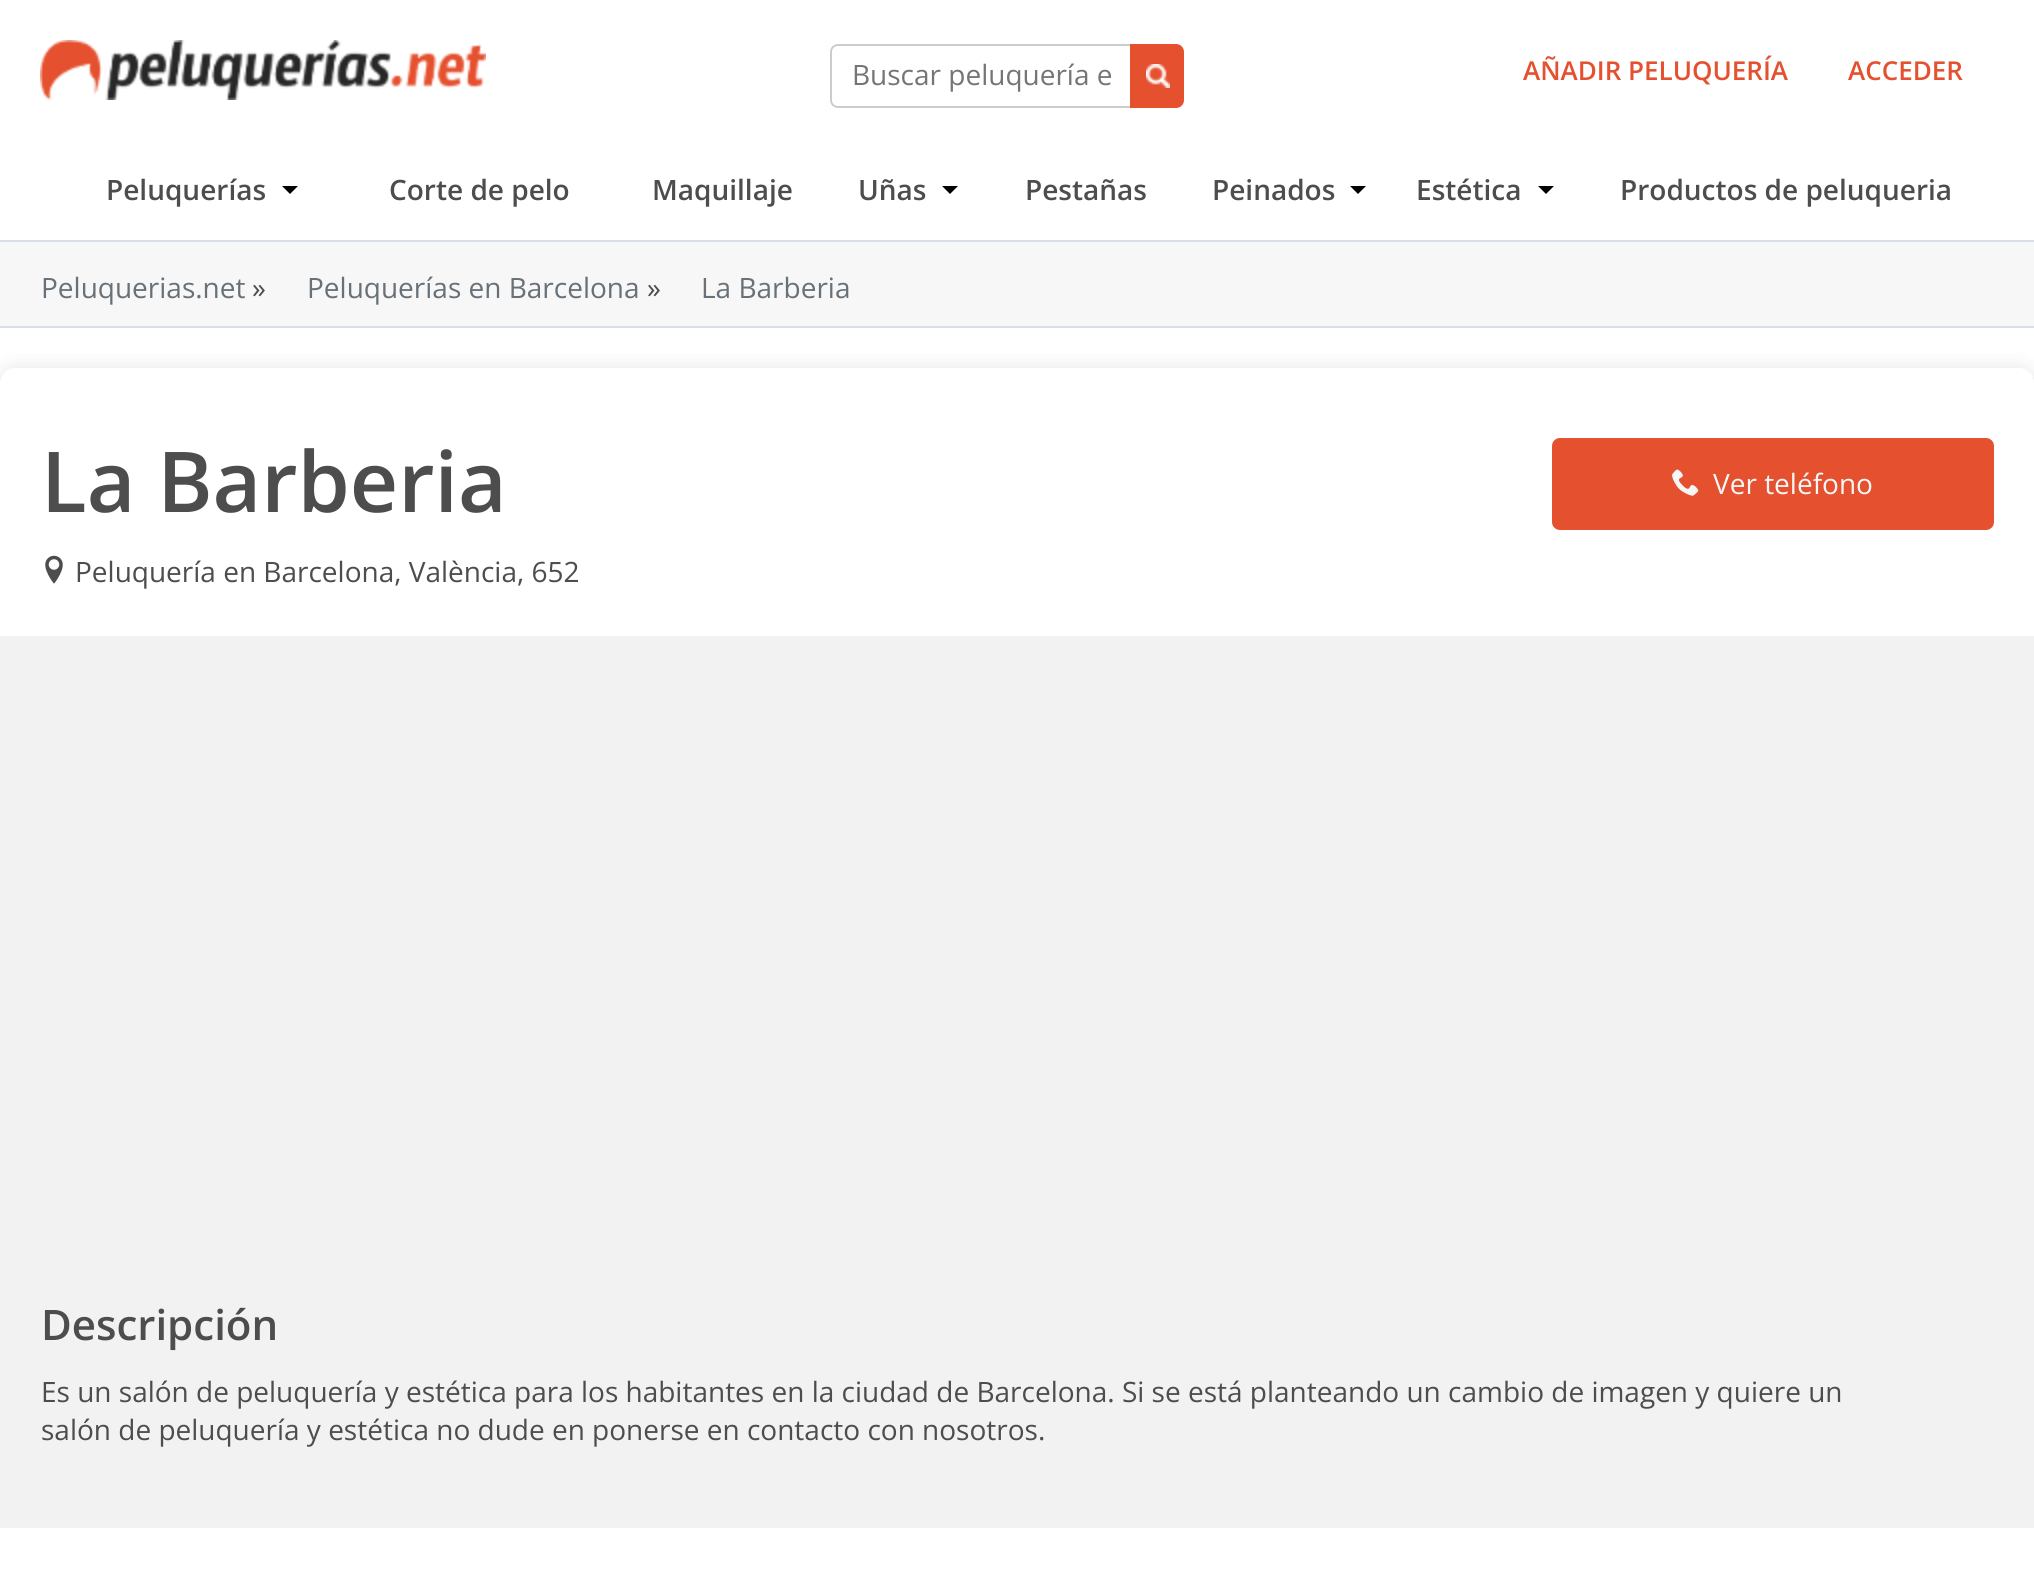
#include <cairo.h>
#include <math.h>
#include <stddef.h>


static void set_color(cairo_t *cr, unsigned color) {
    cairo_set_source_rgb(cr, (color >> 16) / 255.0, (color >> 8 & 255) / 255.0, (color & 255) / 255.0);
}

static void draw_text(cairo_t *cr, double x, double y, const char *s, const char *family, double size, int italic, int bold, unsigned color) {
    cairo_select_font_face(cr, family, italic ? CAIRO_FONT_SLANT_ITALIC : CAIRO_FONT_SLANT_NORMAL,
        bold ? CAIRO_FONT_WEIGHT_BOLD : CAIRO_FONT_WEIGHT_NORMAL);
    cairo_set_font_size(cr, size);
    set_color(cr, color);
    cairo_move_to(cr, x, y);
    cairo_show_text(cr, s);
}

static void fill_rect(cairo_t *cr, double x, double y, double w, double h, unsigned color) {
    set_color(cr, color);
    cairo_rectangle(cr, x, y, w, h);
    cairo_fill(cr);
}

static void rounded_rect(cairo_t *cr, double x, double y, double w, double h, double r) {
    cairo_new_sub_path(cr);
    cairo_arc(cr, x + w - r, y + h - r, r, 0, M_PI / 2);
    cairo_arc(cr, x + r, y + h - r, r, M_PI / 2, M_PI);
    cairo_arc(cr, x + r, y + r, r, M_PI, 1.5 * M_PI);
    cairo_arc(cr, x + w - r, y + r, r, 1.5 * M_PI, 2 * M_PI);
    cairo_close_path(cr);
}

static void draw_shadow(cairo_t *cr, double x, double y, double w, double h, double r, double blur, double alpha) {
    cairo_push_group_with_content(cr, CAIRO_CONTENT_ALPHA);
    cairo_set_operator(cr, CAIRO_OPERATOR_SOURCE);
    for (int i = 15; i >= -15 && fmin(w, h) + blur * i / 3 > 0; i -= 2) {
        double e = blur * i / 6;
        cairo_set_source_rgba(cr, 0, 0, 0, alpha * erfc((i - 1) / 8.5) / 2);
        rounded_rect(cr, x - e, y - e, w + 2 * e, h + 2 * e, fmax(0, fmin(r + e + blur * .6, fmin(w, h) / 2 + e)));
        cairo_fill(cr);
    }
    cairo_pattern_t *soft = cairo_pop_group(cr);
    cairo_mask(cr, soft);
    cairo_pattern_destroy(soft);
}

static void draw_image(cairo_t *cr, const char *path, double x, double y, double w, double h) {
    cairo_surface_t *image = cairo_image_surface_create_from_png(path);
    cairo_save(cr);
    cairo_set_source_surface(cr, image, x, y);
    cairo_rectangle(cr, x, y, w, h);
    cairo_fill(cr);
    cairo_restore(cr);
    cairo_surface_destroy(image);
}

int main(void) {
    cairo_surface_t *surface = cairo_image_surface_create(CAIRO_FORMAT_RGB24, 2034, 1582);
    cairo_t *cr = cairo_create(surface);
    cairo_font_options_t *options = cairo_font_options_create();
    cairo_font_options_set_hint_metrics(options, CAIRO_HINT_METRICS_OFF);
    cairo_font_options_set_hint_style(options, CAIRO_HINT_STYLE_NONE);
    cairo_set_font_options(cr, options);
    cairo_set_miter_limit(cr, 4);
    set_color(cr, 0xFFFFFF);
    cairo_paint(cr);
    draw_image(cr, "assets/img1.png", 40, 40, 446, 60);
    cairo_new_path(cr);
    cairo_move_to(cr, 838, 45);
    cairo_line_to(cr, 1131, 45);
    cairo_line_to(cr, 1131, 107);
    cairo_line_to(cr, 838, 107);
    cairo_curve_to(cr, 834, 107, 831, 104, 831, 100);
    cairo_line_to(cr, 831, 52);
    cairo_curve_to(cr, 831, 48, 834, 45, 838, 45);
    cairo_close_path(cr);
    set_color(cr, 0xCCCCCC);
    cairo_stroke(cr);
    draw_text(cr, 852, 85, "Buscar peluquería e", "Open Sans", 28, 0, 0, 0x757575);
    set_color(cr, 0xE5502F);
    cairo_new_path(cr);
    cairo_move_to(cr, 1130, 44);
    cairo_line_to(cr, 1176, 44);
    cairo_curve_to(cr, 1180.5, 44, 1184, 47.5, 1184, 52);
    cairo_line_to(cr, 1184, 100);
    cairo_curve_to(cr, 1184, 104.5, 1180.5, 108, 1176, 108);
    cairo_line_to(cr, 1130, 108);
    cairo_close_path(cr);
    cairo_fill(cr);
    draw_image(cr, "assets/img2.png", 1146, 64, 24, 24);
    draw_text(cr, 1523, 80, "AÑADIR PELUQUERÍA", "Open Sans SemiBold", 26, 0, 0, 0xE5502F);
    draw_text(cr, 1848, 80, "ACCEDER", "Open Sans SemiBold", 26, 0, 0, 0xE5502F);
    draw_text(cr, 106, 200, "Peluquerías", "Open Sans SemiBold", 28, 0, 0, 0x4D4D4D);
    set_color(cr, 0x000000);
    cairo_new_path(cr);
    cairo_move_to(cr, 282, 186);
    cairo_line_to(cr, 298, 186);
    cairo_line_to(cr, 290, 194);
    cairo_close_path(cr);
    cairo_fill(cr);
    draw_text(cr, 389, 200, "Corte de pelo", "Open Sans SemiBold", 28, 0, 0, 0x4D4D4D);
    draw_text(cr, 652, 200, "Maquillaje", "Open Sans SemiBold", 28, 0, 0, 0x4D4D4D);
    draw_text(cr, 858, 200, "Uñas", "Open Sans SemiBold", 28, 0, 0, 0x4D4D4D);
    set_color(cr, 0x000000);
    cairo_new_path(cr);
    cairo_move_to(cr, 942, 186);
    cairo_line_to(cr, 958, 186);
    cairo_line_to(cr, 950, 194);
    cairo_close_path(cr);
    cairo_fill(cr);
    draw_text(cr, 1025, 200, "Pestañas", "Open Sans SemiBold", 28, 0, 0, 0x4D4D4D);
    draw_text(cr, 1212, 200, "Peinados", "Open Sans SemiBold", 28, 0, 0, 0x4D4D4D);
    set_color(cr, 0x000000);
    cairo_new_path(cr);
    cairo_move_to(cr, 1350, 186);
    cairo_line_to(cr, 1366, 186);
    cairo_line_to(cr, 1358, 194);
    cairo_close_path(cr);
    cairo_fill(cr);
    draw_text(cr, 1416, 200, "Estética", "Open Sans SemiBold", 28, 0, 0, 0x4D4D4D);
    set_color(cr, 0x000000);
    cairo_new_path(cr);
    cairo_move_to(cr, 1538, 186);
    cairo_line_to(cr, 1554, 186);
    cairo_line_to(cr, 1546, 194);
    cairo_close_path(cr);
    cairo_fill(cr);
    draw_text(cr, 1620, 200, "Productos de peluqueria", "Open Sans SemiBold", 28, 0, 0, 0x4D4D4D);
    fill_rect(cr, 0, 242, 2034, 84, 0xF7F7F7);
    fill_rect(cr, 0, 240, 2034, 2, 0xD8DFE6);
    fill_rect(cr, 0, 326, 2034, 2, 0xD8DFE6);
    draw_text(cr, 41, 298, "Peluquerias.net", "Open Sans", 28, 0, 0, 0x687178);
    draw_text(cr, 252, 298, "»", "Open Sans", 28, 0, 0, 0x4D4D4D);
    draw_text(cr, 307, 298, "Peluquerías en Barcelona", "Open Sans", 28, 0, 0, 0x687178);
    draw_text(cr, 647, 298, "»", "Open Sans", 28, 0, 0, 0x4D4D4D);
    draw_text(cr, 701, 298, "La Barberia", "Open Sans", 28, 0, 0, 0x687178);
    cairo_save(cr);
    cairo_set_fill_rule(cr, CAIRO_FILL_RULE_EVEN_ODD);
    cairo_new_path(cr);
    cairo_move_to(cr, 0, 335);
    cairo_line_to(cr, 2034, 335);
    cairo_line_to(cr, 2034, 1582);
    cairo_line_to(cr, 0, 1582);
    cairo_close_path(cr);
    cairo_move_to(cr, 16, 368);
    cairo_line_to(cr, 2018, 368);
    cairo_curve_to(cr, 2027, 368, 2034, 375, 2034, 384);
    cairo_line_to(cr, 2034, 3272);
    cairo_curve_to(cr, 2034, 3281, 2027, 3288, 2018, 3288);
    cairo_line_to(cr, 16, 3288);
    cairo_curve_to(cr, 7, 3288, 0, 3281, 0, 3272);
    cairo_line_to(cr, 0, 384);
    cairo_curve_to(cr, 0, 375, 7, 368, 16, 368);
    cairo_close_path(cr);
    cairo_clip(cr);
    set_color(cr, 0x000000);
    draw_shadow(cr, 0, 372, 2034, 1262, 16, 12, 0.14);
    cairo_restore(cr);
    draw_text(cr, 41, 512, "La Barberia", "Open Sans SemiBold", 84, 0, 0, 0x4D4D4D);
    draw_image(cr, "assets/img3.png", 45, 555, 18, 29);
    draw_text(cr, 75, 582, "Peluquería en Barcelona, València, 652", "Open Sans", 28, 0, 0, 0x4D4D4D);
    set_color(cr, 0xE5502F);
    rounded_rect(cr, 1552, 438, 442, 92, 8);
    cairo_fill(cr);
    draw_image(cr, "assets/img4.png", 1672, 469, 27, 27);
    draw_text(cr, 1713, 494, "Ver teléfono", "Open Sans", 28, 0, 0, 0xF6F6F6);
    fill_rect(cr, 0, 636, 2034, 892, 0xF2F2F2);
    draw_text(cr, 41, 1340, "Descripción", "Open Sans SemiBold", 42, 0, 0, 0x4D4D4D);
    draw_text(cr, 41, 1402, "Es un salón de peluquería y estética para los habitantes en la ciudad de Barcelona. Si se está planteando un cambio de imagen y quiere un", "Open Sans", 28, 0, 0, 0x4D4D4D);
    draw_text(cr, 41, 1440, "salón de peluquería y estética no dude en ponerse en contacto con nosotros.", "Open Sans", 28, 0, 0, 0x4D4D4D);
    cairo_surface_write_to_png(surface, "output.png");
    cairo_font_options_destroy(options);
    cairo_destroy(cr);
    cairo_surface_destroy(surface);
    return 0;
}
